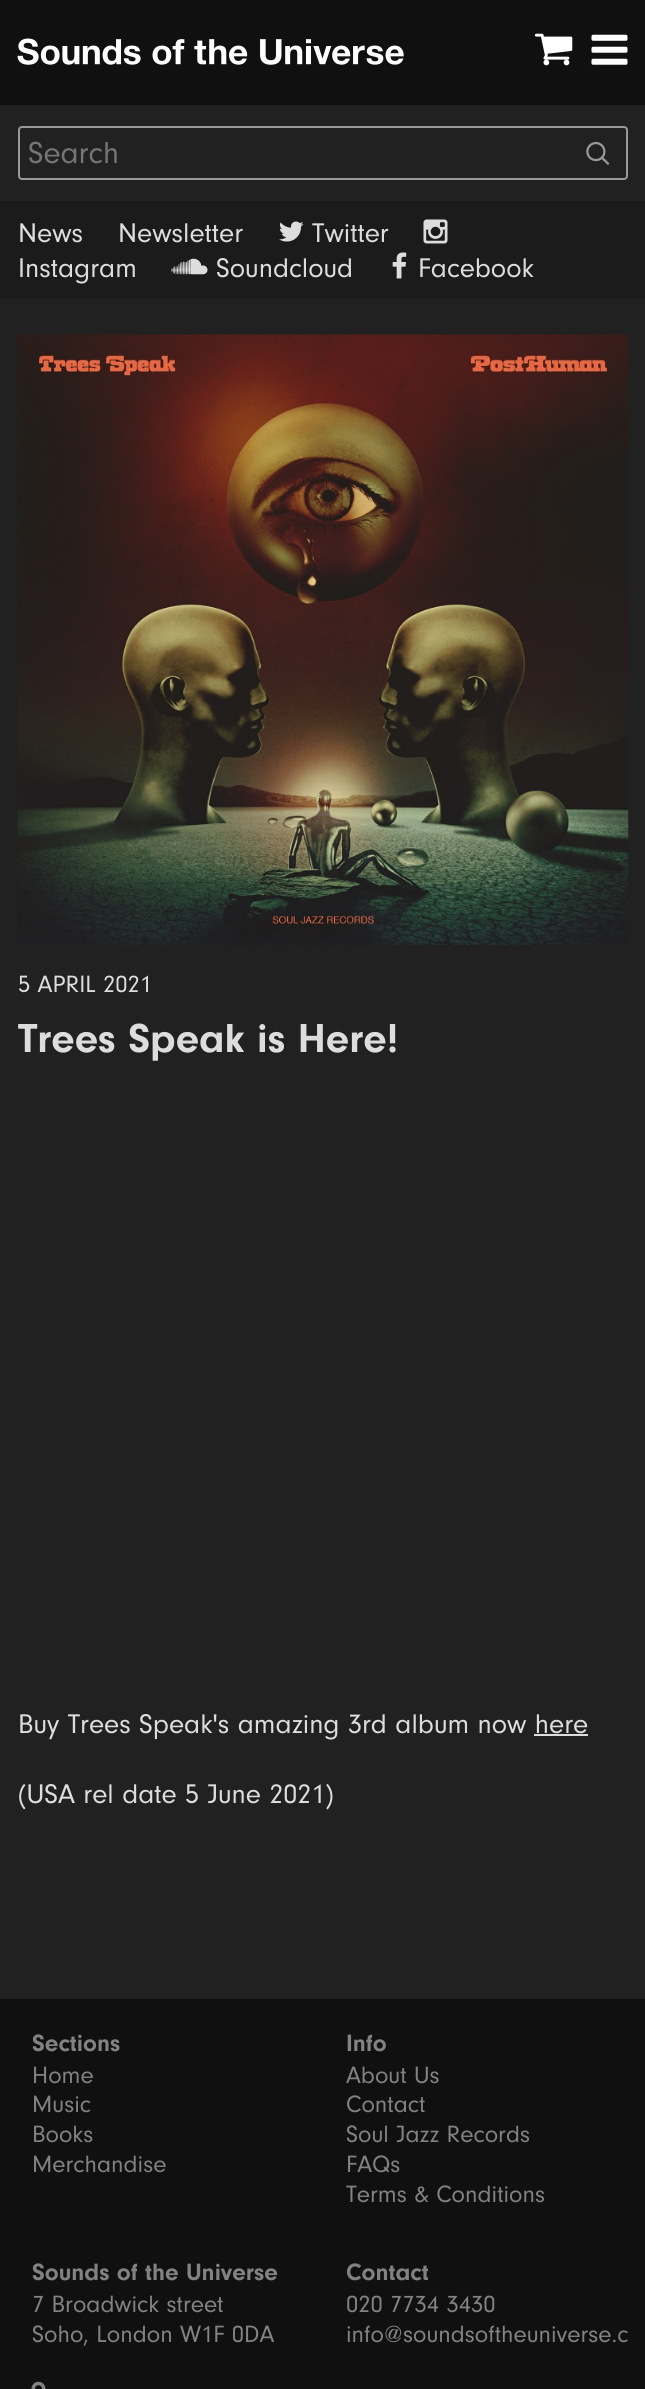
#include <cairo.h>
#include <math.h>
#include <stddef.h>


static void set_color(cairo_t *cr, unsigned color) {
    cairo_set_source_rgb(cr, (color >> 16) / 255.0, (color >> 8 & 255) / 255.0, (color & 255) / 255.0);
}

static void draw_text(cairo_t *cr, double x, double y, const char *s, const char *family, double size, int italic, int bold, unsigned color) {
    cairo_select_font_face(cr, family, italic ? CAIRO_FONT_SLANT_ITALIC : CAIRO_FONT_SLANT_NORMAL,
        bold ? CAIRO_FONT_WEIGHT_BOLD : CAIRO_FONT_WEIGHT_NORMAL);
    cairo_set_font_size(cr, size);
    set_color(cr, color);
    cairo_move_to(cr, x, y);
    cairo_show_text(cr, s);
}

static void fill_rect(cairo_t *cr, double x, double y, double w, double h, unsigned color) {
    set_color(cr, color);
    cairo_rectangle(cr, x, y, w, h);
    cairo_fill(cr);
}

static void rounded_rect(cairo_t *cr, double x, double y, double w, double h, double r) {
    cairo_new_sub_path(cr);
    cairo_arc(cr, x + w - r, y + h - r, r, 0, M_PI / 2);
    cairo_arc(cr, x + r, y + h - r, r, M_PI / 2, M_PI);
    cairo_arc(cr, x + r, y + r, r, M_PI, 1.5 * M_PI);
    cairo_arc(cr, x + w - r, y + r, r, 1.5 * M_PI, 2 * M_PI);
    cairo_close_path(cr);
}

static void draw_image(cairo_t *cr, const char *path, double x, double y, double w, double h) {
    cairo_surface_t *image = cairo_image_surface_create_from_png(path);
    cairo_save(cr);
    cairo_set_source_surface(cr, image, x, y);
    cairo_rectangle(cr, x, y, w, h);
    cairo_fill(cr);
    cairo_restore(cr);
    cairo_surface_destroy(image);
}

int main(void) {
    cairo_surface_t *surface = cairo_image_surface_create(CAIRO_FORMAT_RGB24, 645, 2389);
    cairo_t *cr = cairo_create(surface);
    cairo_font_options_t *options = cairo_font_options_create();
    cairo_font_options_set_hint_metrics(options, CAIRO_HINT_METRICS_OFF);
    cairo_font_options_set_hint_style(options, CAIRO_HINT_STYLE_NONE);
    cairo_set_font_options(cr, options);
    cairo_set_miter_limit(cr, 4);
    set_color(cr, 0x212121);
    cairo_paint(cr);
    fill_rect(cr, 0, 0, 645, 105, 0x101010);
    draw_image(cr, "assets/img1.png", 17, 38, 387, 27);
    draw_image(cr, "assets/img2.png", 534, 33, 39, 33);
    draw_image(cr, "assets/img3.png", 591, 34, 37, 31);
    rounded_rect(cr, 19, 127, 608, 52, 3);
    set_color(cr, 0x999999);
    cairo_stroke(cr);
    draw_text(cr, 28, 163, "Search", "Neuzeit", 31.5, 0, 0, 0x757575);
    draw_image(cr, "assets/img4.png", 586, 141, 24, 24);
    fill_rect(cr, 0, 201, 645, 98, 0x1B1B1B);
    draw_text(cr, 18, 242, "News", "Neuzeit", 28, 0, 0, 0xDDDDDD);
    draw_text(cr, 118, 242, "Newsletter", "Neuzeit", 28, 0, 0, 0xDDDDDD);
    draw_image(cr, "assets/img5.png", 279, 221, 25, 21);
    draw_text(cr, 312, 242, "Twitter", "Neuzeit", 28, 0, 0, 0xDDDDDD);
    draw_image(cr, "assets/img6.png", 423, 219, 25, 25);
    draw_text(cr, 18, 277, "Instagram", "Neuzeit", 28, 0, 0, 0xDDDDDD);
    draw_image(cr, "assets/img7.png", 171, 258, 37, 17);
    draw_text(cr, 216, 277, "Soundcloud", "Neuzeit", 28, 0, 0, 0xDDDDDD);
    draw_image(cr, "assets/img8.png", 392, 252, 15, 27);
    draw_text(cr, 418, 277, "Facebook", "Neuzeit", 28, 0, 0, 0xDDDDDD);
    draw_image(cr, "assets/img9.png", 17, 334, 612, 611);
    draw_text(cr, 18, 992, "5 APRIL 2021", "Neuzeit", 24.5, 0, 0, 0xDDDDDD);
    cairo_save(cr);
    cairo_rectangle(cr, 18, 971, 610, 840);
    cairo_clip(cr);
    draw_text(cr, 18, 1052, "Trees Speak is Here!", "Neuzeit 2", 42, 0, 0, 0xDDDDDD);
    cairo_restore(cr);
    draw_text(cr, 18, 1733, "Buy Trees Speak's amazing 3rd album now here", "Neuzeit", 28, 0, 0, 0xDDDDDD);
    fill_rect(cr, 534, 1734, 54, 2, 0xDDDDDD);
    draw_text(cr, 18, 1803, "(USA rel date 5 June 2021)", "Neuzeit", 28, 0, 0, 0xDDDDDD);
    fill_rect(cr, 0, 1999, 645, 390, 0x101010);
    draw_text(cr, 32, 2051, "Sections", "Neuzeit 2", 24.5, 0, 0, 0x828282);
    draw_text(cr, 32, 2083, "Home", "Neuzeit", 24.5, 0, 0, 0x828282);
    draw_text(cr, 32, 2112, "Music", "Neuzeit", 24.5, 0, 0, 0x828282);
    draw_text(cr, 32, 2142, "Books", "Neuzeit", 24.5, 0, 0, 0x828282);
    draw_text(cr, 32, 2172, "Merchandise", "Neuzeit", 24.5, 0, 0, 0x828282);
    draw_text(cr, 346, 2051, "Info", "Neuzeit 2", 24.5, 0, 0, 0x828282);
    draw_text(cr, 346, 2083, "About Us", "Neuzeit", 24.5, 0, 0, 0x828282);
    draw_text(cr, 346, 2112, "Contact", "Neuzeit", 24.5, 0, 0, 0x828282);
    draw_text(cr, 346, 2142, "Soul Jazz Records", "Neuzeit", 24.5, 0, 0, 0x828282);
    draw_text(cr, 346, 2172, "FAQs", "Neuzeit", 24.5, 0, 0, 0x828282);
    draw_text(cr, 346, 2202, "Terms & Conditions", "Neuzeit", 24.5, 0, 0, 0x828282);
    draw_text(cr, 32, 2280, "Sounds of the Universe", "Neuzeit 2", 24.5, 0, 0, 0x828282);
    draw_text(cr, 32, 2312, "7 Broadwick street", "Neuzeit", 24.5, 0, 0, 0x828282);
    draw_text(cr, 32, 2342, "Soho, London W1F 0DA", "Neuzeit", 24.5, 0, 0, 0x828282);
    draw_image(cr, "assets/img10.png", 31, 2381, 15, 8);
    draw_text(cr, 346, 2280, "Contact", "Neuzeit 2", 24.5, 0, 0, 0x828282);
    draw_text(cr, 346, 2312, "020 7734 3430", "Neuzeit", 24.5, 0, 0, 0x828282);
    draw_text(cr, 346, 2342, "info@soundsoftheuniverse.c", "Neuzeit", 24.5, 0, 0, 0x828282);
    cairo_surface_write_to_png(surface, "output.png");
    cairo_font_options_destroy(options);
    cairo_destroy(cr);
    cairo_surface_destroy(surface);
    return 0;
}
